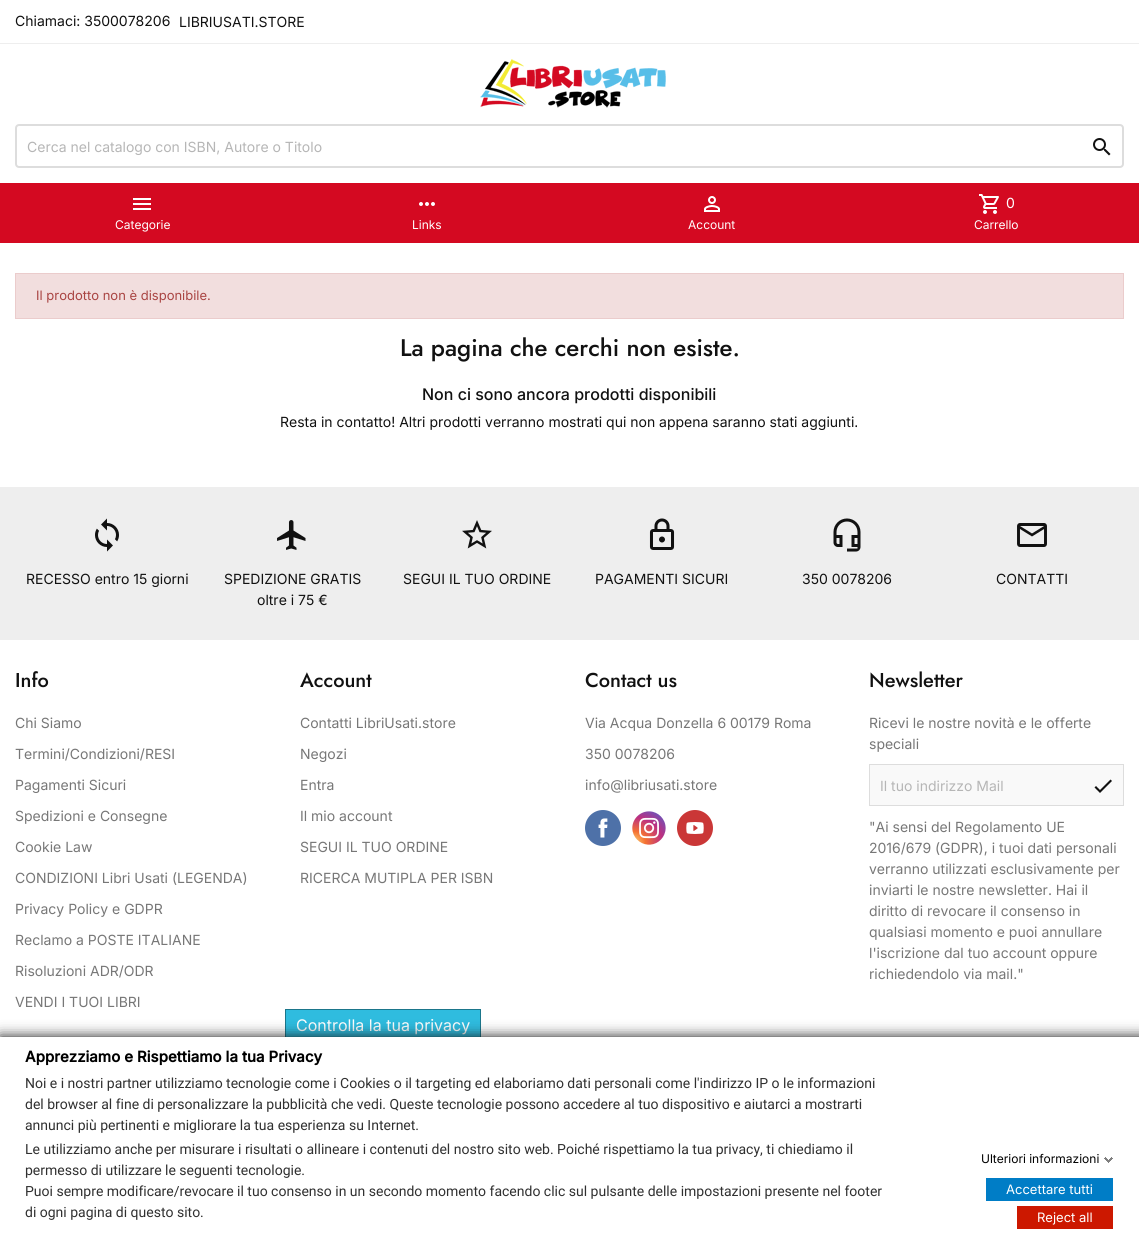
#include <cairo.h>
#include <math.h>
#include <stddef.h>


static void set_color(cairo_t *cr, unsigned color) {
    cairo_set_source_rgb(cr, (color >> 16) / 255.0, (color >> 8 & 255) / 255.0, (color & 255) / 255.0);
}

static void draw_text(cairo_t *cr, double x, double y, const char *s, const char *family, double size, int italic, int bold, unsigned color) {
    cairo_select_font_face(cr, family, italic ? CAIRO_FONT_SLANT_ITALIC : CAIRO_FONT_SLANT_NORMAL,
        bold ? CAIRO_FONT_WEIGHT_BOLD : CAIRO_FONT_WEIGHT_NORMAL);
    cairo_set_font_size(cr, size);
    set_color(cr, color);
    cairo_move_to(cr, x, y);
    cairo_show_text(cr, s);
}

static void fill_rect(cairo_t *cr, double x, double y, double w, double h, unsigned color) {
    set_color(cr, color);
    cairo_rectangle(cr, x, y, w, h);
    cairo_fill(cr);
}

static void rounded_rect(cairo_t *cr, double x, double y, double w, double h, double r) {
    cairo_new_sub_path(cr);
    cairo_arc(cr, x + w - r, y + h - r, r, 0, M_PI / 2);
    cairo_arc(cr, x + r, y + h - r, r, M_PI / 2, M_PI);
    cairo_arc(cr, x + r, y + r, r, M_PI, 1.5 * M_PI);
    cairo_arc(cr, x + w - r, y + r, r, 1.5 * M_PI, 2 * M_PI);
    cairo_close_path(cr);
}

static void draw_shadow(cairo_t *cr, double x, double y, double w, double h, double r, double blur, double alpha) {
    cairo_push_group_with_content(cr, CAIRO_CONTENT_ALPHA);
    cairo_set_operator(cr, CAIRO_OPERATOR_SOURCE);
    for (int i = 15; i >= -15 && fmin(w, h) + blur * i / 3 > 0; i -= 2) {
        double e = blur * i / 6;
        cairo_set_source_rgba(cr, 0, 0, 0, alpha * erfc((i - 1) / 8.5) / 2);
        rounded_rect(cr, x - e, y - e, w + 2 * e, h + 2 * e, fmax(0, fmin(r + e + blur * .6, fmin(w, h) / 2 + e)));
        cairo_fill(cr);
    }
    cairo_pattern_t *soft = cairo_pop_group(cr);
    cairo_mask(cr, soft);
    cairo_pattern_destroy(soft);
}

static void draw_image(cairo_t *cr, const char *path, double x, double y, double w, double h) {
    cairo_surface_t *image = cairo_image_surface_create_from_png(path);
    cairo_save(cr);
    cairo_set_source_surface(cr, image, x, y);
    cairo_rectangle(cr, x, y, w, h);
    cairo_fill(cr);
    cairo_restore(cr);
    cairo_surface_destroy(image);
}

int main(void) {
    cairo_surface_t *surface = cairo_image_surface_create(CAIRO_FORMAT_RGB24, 1139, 1241);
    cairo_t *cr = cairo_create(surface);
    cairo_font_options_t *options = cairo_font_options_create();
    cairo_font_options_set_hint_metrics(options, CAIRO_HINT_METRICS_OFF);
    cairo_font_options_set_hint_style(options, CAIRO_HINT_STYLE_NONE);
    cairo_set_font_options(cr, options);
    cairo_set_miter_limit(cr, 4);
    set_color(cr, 0xFFFFFF);
    cairo_paint(cr);
    fill_rect(cr, 0, 43, 1139, 1, 0xEEEEEE);
    draw_text(cr, 15, 26, "Chiamaci: 3500078206", "Inter", 14, 0, 0, 0x111111);
    draw_text(cr, 179, 27, "LIBRIUSATI.STORE", "Inter", 14, 0, 0, 0x111111);
    draw_image(cr, "assets/img1.png", 480, 59, 186, 49);
    rounded_rect(cr, 16, 125, 1107, 42, 3);
    set_color(cr, 0xDDDDDD);
    cairo_stroke(cr);
    draw_text(cr, 27, 152, "Cerca nel catalogo con ISBN, Autore o Titolo", "Inter", 14, 0, 0, 0xB6B6B6);
    draw_image(cr, "assets/img2.png", 1093, 138, 18, 18);
    fill_rect(cr, 0, 183, 1139, 60, 0xD40921);
    draw_image(cr, "assets/img3.png", 133, 198, 18, 12);
    draw_text(cr, 115, 229, "Categorie", "Inter", 12, 0, 0, 0xFFFFFF);
    draw_image(cr, "assets/img4.png", 419, 202, 16, 4);
    draw_text(cr, 412, 229, "Links", "Inter", 12, 0, 0, 0xFFFFFF);
    draw_image(cr, "assets/img5.png", 704, 196, 16, 16);
    draw_text(cr, 688, 229, "Account", "Inter", 12, 0, 0, 0xFFFFFF);
    draw_image(cr, "assets/img6.png", 979, 194, 20, 20);
    draw_text(cr, 1006, 208, "0", "Inter", 14, 0, 0, 0xFFFFFF);
    draw_text(cr, 974, 229, "Carrello", "Inter", 12, 0, 0, 0xFFFFFF);
    set_color(cr, 0xF2DEDE);
    cairo_rectangle(cr, 15.5, 273.5, 1108, 45);
    cairo_fill_preserve(cr);
    set_color(cr, 0xEBCCCC);
    cairo_set_line_width(cr, 1);
    cairo_stroke(cr);
    draw_text(cr, 36, 300, "Il prodotto non è disponibile.", "Inter", 13, 0, 0, 0xA94442);
    draw_text(cr, 400, 356, "La pagina che cerchi non esiste.", "Jost Medium", 24, 0, 0, 0x111111);
    draw_text(cr, 422, 400, "Non ci sono ancora prodotti disponibili", "Inter Medium", 16, 0, 0, 0x111111);
    draw_text(cr, 280, 427, "Resta in contatto! Altri prodotti verranno mostrati qui non appena saranno stati aggiunti.", "Inter", 14, 0, 0, 0x111111);
    fill_rect(cr, 0, 487, 1139, 153, 0xEEEEEE);
    draw_image(cr, "assets/img7.png", 95, 518, 24, 34);
    draw_text(cr, 26, 584, "RECESSO entro 15 giorni", "Inter", 14, 0, 0, 0x111111);
    draw_image(cr, "assets/img8.png", 277, 520, 29, 30);
    draw_text(cr, 224, 584, "SPEDIZIONE GRATIS", "Inter", 14, 0, 0, 0x111111);
    draw_text(cr, 257, 605, "oltre i 75 €", "Inter", 14, 0, 0, 0x111111);
    draw_image(cr, "assets/img9.png", 462, 520, 30, 29);
    draw_text(cr, 403, 584, "SEGUI IL TUO ORDINE", "Inter", 14, 0, 0, 0x111111);
    draw_image(cr, "assets/img10.png", 649, 518, 26, 32);
    draw_text(cr, 595, 584, "PAGAMENTI SICURI", "Inter", 14, 0, 0, 0x111111);
    draw_image(cr, "assets/img11.png", 833, 518, 28, 34);
    draw_text(cr, 802, 584, "350 0078206", "Inter", 14, 0, 0, 0x111111);
    draw_image(cr, "assets/img12.png", 1017, 523, 30, 24);
    draw_text(cr, 996, 584, "CONTATTI", "Inter", 14, 0, 0, 0x111111);
    draw_text(cr, 15, 687, "Info", "Jost Medium", 20, 0, 0, 0x111111);
    draw_text(cr, 15, 728, "Chi Siamo", "Inter", 14, 0, 0, 0x777777);
    draw_text(cr, 15, 759, "Termini/Condizioni/RESI", "Inter", 14, 0, 0, 0x777777);
    draw_text(cr, 15, 790, "Pagamenti Sicuri", "Inter", 14, 0, 0, 0x777777);
    draw_text(cr, 15, 821, "Spedizioni e Consegne", "Inter", 14, 0, 0, 0x777777);
    draw_text(cr, 15, 852, "Cookie Law", "Inter", 14, 0, 0, 0x777777);
    draw_text(cr, 15, 883, "CONDIZIONI Libri Usati (LEGENDA)", "Inter", 14, 0, 0, 0x777777);
    draw_text(cr, 15, 914, "Privacy Policy e GDPR", "Inter", 14, 0, 0, 0x777777);
    draw_text(cr, 15, 945, "Reclamo a POSTE ITALIANE", "Inter", 14, 0, 0, 0x777777);
    draw_text(cr, 15, 976, "Risoluzioni ADR/ODR", "Inter", 14, 0, 0, 0x777777);
    draw_text(cr, 15, 1007, "VENDI I TUOI LIBRI", "Inter", 14, 0, 0, 0x777777);
    draw_text(cr, 300, 687, "Account", "Jost Medium", 20, 0, 0, 0x111111);
    draw_text(cr, 300, 728, "Contatti LibriUsati.store", "Inter", 14, 0, 0, 0x777777);
    draw_text(cr, 300, 759, "Negozi", "Inter", 14, 0, 0, 0x777777);
    draw_text(cr, 300, 790, "Entra", "Inter", 14, 0, 0, 0x777777);
    draw_text(cr, 300, 821, "Il mio account", "Inter", 14, 0, 0, 0x777777);
    draw_text(cr, 300, 852, "SEGUI IL TUO ORDINE", "Inter", 14, 0, 0, 0x777777);
    draw_text(cr, 300, 883, "RICERCA MUTIPLA PER ISBN", "Inter", 14, 0, 0, 0x777777);
    draw_text(cr, 585, 687, "Contact us", "Jost Medium", 20, 0, 0, 0x111111);
    draw_text(cr, 585, 728, "Via Acqua Donzella 6 00179 Roma", "Inter", 14, 0, 0, 0x777777);
    draw_text(cr, 585, 759, "350 0078206", "Inter", 14, 0, 0, 0x777777);
    draw_text(cr, 585, 790, "info@libriusati.store", "Inter", 14, 0, 0, 0x777777);
    draw_image(cr, "assets/img13.png", 585, 810, 36, 36);
    draw_image(cr, "assets/img14.png", 632, 811, 34, 34);
    draw_image(cr, "assets/img15.png", 677, 810, 36, 36);
    draw_text(cr, 869, 687, "Newsletter", "Jost Medium", 20, 0, 0, 0x111111);
    draw_text(cr, 869, 728, "Ricevi le nostre novità e le offerte", "Inter", 14, 0, 0, 0x777777);
    draw_text(cr, 869, 749, "speciali", "Inter", 14, 0, 0, 0x777777);
    set_color(cr, 0xF9F9F9);
    cairo_rectangle(cr, 869.5, 764.5, 254, 41);
    cairo_fill_preserve(cr);
    set_color(cr, 0xDDDDDD);
    cairo_stroke(cr);
    draw_text(cr, 880, 791, "Il tuo indirizzo Mail", "Inter", 14, 0, 0, 0xB6B6B6);
    set_color(cr, 0x111111);
    cairo_new_path(cr);
    cairo_move_to(cr, 1100, 790);
    cairo_line_to(cr, 1096, 786);
    cairo_line_to(cr, 1094.5, 787.5);
    cairo_line_to(cr, 1100, 793);
    cairo_line_to(cr, 1112, 781);
    cairo_line_to(cr, 1110.5, 779.5);
    cairo_close_path(cr);
    cairo_fill(cr);
    draw_text(cr, 869, 832, "\"Ai sensi del Regolamento UE", "Inter", 14, 0, 0, 0x777777);
    draw_text(cr, 869, 853, "2016/679 (GDPR), i tuoi dati personali", "Inter", 14, 0, 0, 0x777777);
    draw_text(cr, 869, 874, "verranno utilizzati esclusivamente per", "Inter", 14, 0, 0, 0x777777);
    draw_text(cr, 869, 895, "inviarti le nostre newsletter. Hai il", "Inter", 14, 0, 0, 0x777777);
    draw_text(cr, 869, 916, "diritto di revocare il consenso in", "Inter", 14, 0, 0, 0x777777);
    draw_text(cr, 869, 937, "qualsiasi momento e puoi annullare", "Inter", 14, 0, 0, 0x777777);
    draw_text(cr, 869, 958, "l'iscrizione dal tuo account oppure", "Inter", 14, 0, 0, 0x777777);
    draw_text(cr, 869, 979, "richiedendolo via mail.\"", "Inter", 14, 0, 0, 0x777777);
    fill_rect(cr, 286, 1010, 194, 27, 0x2FBCDF);
    cairo_rectangle(cr, 285.5, 1009.5, 195, 31);
    set_color(cr, 0x1B768B);
    cairo_stroke(cr);
    draw_text(cr, 296, 1031, "Controlla la tua privacy", "Inter", 16, 0, 0, 0xFFFFFF);
    set_color(cr, 0x121212);
    draw_shadow(cr, 0, 1037, 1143, 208, 0, 7, 1);
    fill_rect(cr, 0, 1037, 1139, 204, 0xFFFFFF);
    draw_text(cr, 25, 1062, "Apprezziamo e Rispettiamo la tua Privacy", "Inter", 15, 0, 1, 0x000000);
    draw_text(cr, 25, 1088, "Noi e i nostri partner utilizziamo tecnologie come i Cookies o il targeting ed elaboriamo dati personali come l'indirizzo IP o le informazioni", "Roboto", 14, 0, 0, 0x303030);
    draw_text(cr, 25, 1109, "del browser al fine di personalizzare la pubblicità che vedi. Queste tecnologie possono accedere al tuo dispositivo e aiutarci a mostrarti", "Roboto", 14, 0, 0, 0x303030);
    draw_text(cr, 25, 1130, "annunci più pertinenti e migliorare la tua esperienza su Internet.", "Roboto", 14, 0, 0, 0x303030);
    draw_text(cr, 25, 1154, "Le utilizziamo anche per misurare i risultati o allineare i contenuti del nostro sito web. Poiché rispettiamo la tua privacy, ti chiediamo il", "Roboto", 14, 0, 0, 0x303030);
    draw_text(cr, 25, 1175, "permesso di utilizzare le seguenti tecnologie.", "Roboto", 14, 0, 0, 0x303030);
    draw_text(cr, 25, 1196, "Puoi sempre modificare/revocare il tuo consenso in un secondo momento facendo clic sul pulsante delle impostazioni presente nel footer", "Roboto", 14, 0, 0, 0x303030);
    draw_text(cr, 25, 1217, "di ogni pagina di questo sito.", "Roboto", 14, 0, 0, 0x303030);
    draw_text(cr, 981, 1163, "Ulteriori informazioni", "Inter", 12, 0, 0, 0x000000);
    draw_image(cr, "assets/img16.png", 1104, 1157, 9, 6);
    fill_rect(cr, 986, 1178, 127, 23, 0x007DC6);
    draw_text(cr, 1006, 1194, "Accettare tutti", "Inter", 13, 0, 0, 0xFFFFFF);
    fill_rect(cr, 1017, 1206, 96, 23, 0xCC1800);
    draw_text(cr, 1037, 1222, "Reject all", "Inter", 13, 0, 0, 0xFFFFFF);
    cairo_surface_write_to_png(surface, "output.png");
    cairo_font_options_destroy(options);
    cairo_destroy(cr);
    cairo_surface_destroy(surface);
    return 0;
}
